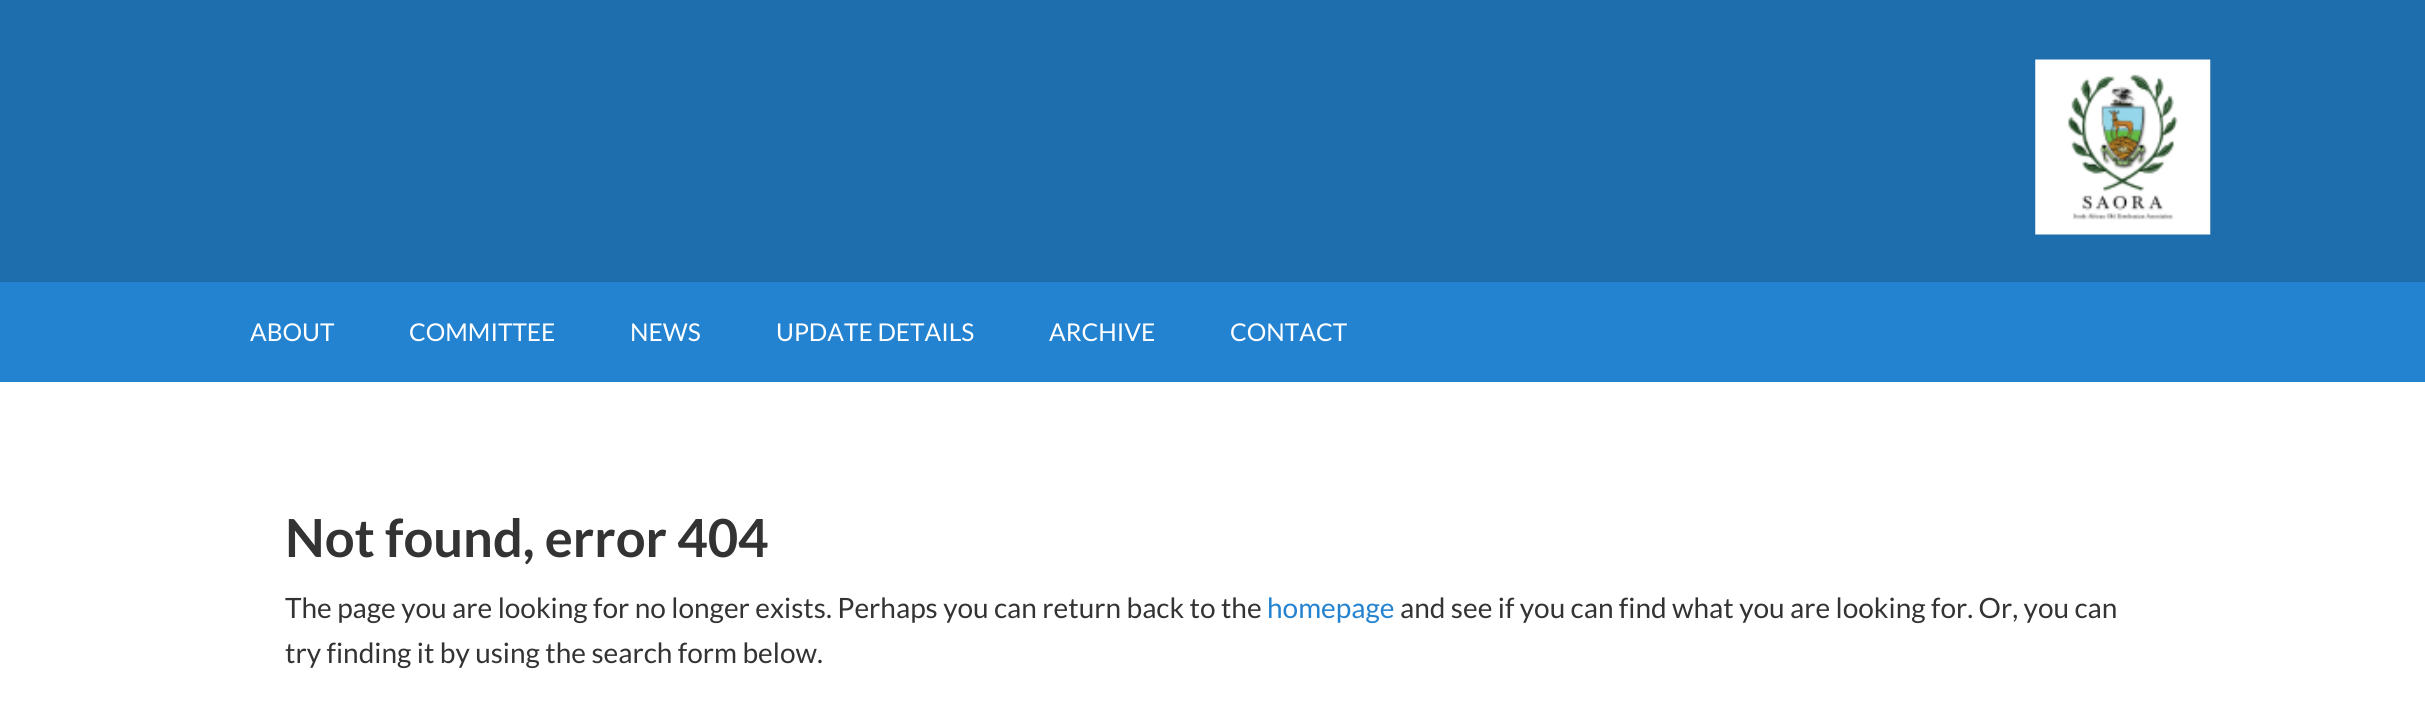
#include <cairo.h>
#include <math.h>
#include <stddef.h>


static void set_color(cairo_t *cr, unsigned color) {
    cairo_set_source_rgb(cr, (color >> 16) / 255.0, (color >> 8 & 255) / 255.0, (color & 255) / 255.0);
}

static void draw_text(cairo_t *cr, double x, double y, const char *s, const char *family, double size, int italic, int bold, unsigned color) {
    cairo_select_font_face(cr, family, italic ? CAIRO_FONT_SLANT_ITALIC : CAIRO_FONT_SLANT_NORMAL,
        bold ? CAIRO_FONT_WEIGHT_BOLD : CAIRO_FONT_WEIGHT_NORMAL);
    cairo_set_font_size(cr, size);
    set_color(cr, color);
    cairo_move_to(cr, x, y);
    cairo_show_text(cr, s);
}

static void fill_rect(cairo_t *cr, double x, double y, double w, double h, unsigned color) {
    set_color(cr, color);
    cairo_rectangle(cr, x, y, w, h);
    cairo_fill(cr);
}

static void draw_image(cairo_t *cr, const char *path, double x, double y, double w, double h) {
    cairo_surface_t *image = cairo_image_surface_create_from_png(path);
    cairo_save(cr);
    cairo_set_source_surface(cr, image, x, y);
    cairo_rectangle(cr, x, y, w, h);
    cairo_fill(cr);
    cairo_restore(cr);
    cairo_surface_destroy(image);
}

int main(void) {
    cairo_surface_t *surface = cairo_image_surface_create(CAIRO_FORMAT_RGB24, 2425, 712);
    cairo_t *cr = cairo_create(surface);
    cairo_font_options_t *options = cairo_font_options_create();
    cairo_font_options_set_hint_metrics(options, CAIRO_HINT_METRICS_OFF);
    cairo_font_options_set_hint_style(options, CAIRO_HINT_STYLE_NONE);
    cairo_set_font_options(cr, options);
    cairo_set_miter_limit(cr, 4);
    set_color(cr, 0xFFFFFF);
    cairo_paint(cr);
    fill_rect(cr, 0, 0, 2425, 282, 0x1E6DAD);
    draw_image(cr, "assets/img1.png", 2035, 59, 176, 176);
    fill_rect(cr, 0, 282, 2425, 100, 0x2483D0);
    draw_text(cr, 250, 341, "ABOUT", "Lato", 24.5, 0, 0, 0xFFFFFF);
    draw_text(cr, 409, 341, "COMMITTEE", "Lato", 24.5, 0, 0, 0xFFFFFF);
    draw_text(cr, 630, 341, "NEWS", "Lato", 24.5, 0, 0, 0xFFFFFF);
    draw_text(cr, 776, 341, "UPDATE DETAILS", "Lato", 24.5, 0, 0, 0xFFFFFF);
    draw_text(cr, 1049, 341, "ARCHIVE", "Lato", 24.5, 0, 0, 0xFFFFFF);
    draw_text(cr, 1230, 341, "CONTACT", "Lato", 24.5, 0, 0, 0xFFFFFF);
    draw_text(cr, 285, 557, "Not found, error 404", "Lato", 52.5, 0, 1, 0x333333);
    draw_text(cr, 285, 618, "The page you are looking for no longer exists. Perhaps you can return back to the", "Lato", 28, 0, 0, 0x333333);
    draw_text(cr, 1267, 618, "homepage", "Lato", 28, 0, 0, 0x2483D0);
    draw_text(cr, 1400, 618, "and see if you can find what you are looking for. Or, you can", "Lato", 28, 0, 0, 0x333333);
    draw_text(cr, 285, 663, "try finding it by using the search form below.", "Lato", 28, 0, 0, 0x333333);
    cairo_surface_write_to_png(surface, "output.png");
    cairo_font_options_destroy(options);
    cairo_destroy(cr);
    cairo_surface_destroy(surface);
    return 0;
}
